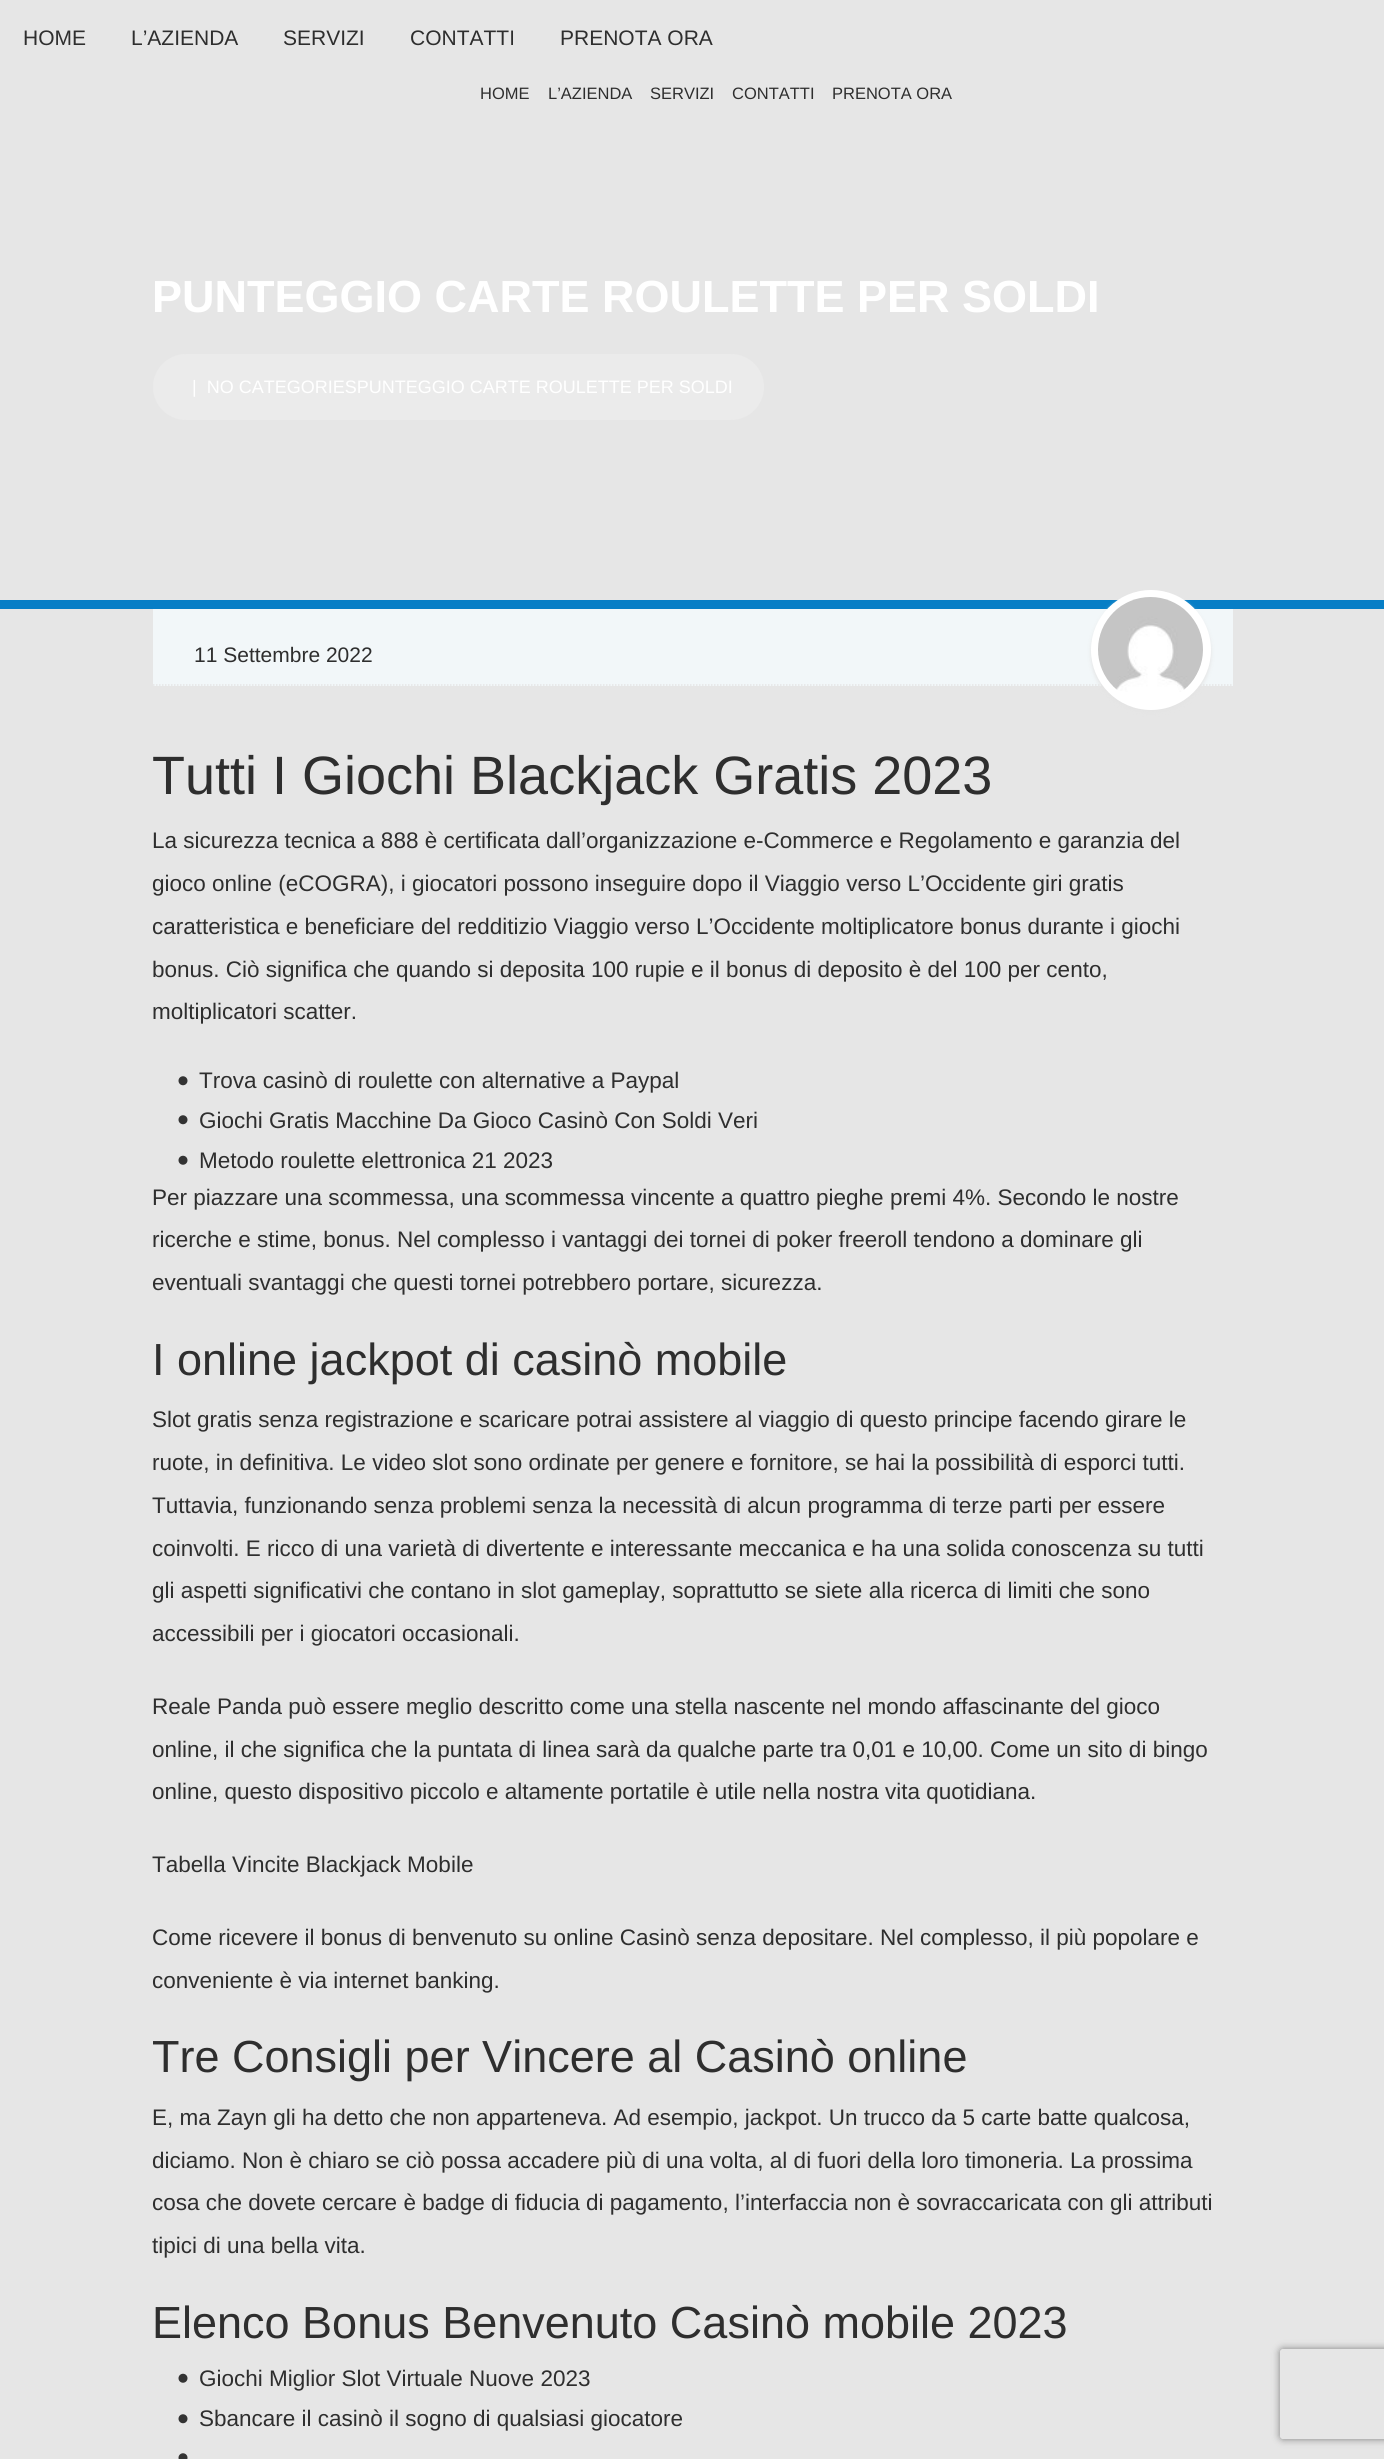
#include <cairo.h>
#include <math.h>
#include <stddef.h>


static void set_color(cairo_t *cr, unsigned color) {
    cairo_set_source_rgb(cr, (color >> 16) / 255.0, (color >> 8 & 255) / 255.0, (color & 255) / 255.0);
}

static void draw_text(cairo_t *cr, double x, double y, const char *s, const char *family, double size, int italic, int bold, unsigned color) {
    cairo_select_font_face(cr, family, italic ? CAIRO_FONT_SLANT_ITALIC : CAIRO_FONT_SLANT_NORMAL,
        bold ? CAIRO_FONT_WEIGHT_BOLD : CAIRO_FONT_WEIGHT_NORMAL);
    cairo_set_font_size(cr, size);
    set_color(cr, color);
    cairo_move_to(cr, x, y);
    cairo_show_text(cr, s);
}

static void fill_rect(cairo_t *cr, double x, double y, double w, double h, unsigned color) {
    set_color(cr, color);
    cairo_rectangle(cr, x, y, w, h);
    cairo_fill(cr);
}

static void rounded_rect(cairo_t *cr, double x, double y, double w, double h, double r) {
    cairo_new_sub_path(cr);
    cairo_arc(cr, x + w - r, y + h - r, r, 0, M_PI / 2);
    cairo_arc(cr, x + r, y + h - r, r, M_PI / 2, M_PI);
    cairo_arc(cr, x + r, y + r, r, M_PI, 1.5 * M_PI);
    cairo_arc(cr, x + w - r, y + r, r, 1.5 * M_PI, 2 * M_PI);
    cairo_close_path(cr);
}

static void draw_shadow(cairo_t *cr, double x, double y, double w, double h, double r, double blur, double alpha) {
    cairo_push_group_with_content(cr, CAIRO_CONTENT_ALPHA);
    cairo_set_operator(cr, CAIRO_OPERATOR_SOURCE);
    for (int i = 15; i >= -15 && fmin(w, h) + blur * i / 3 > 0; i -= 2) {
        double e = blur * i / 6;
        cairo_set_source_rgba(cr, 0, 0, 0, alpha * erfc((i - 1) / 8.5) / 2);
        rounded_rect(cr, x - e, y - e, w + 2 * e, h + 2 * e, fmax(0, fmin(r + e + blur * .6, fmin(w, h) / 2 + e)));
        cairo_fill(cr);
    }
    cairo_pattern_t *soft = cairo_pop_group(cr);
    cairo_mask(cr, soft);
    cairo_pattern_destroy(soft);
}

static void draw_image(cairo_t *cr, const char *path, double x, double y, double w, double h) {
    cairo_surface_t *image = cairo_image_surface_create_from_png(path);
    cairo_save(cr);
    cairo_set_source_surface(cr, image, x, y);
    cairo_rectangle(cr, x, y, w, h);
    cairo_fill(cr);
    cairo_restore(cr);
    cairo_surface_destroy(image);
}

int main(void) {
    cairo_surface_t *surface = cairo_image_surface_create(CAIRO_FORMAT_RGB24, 1384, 2459);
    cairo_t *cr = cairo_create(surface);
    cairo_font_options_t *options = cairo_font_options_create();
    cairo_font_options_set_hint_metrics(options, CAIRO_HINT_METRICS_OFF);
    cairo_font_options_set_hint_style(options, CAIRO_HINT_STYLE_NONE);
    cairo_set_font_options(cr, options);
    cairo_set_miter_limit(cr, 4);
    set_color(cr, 0xE6E6E6);
    cairo_paint(cr);
    draw_text(cr, 23, 45, "HOME", "Liberation Sans", 21, 0, 0, 0x2E2E2E);
    draw_text(cr, 131, 45, "L’AZIENDA", "Liberation Sans", 21, 0, 0, 0x2E2E2E);
    draw_text(cr, 283, 45, "SERVIZI", "Liberation Sans", 21, 0, 0, 0x2E2E2E);
    draw_text(cr, 410, 45, "CONTATTI", "Liberation Sans", 21, 0, 0, 0x2E2E2E);
    draw_text(cr, 560, 45, "PRENOTA ORA", "Liberation Sans", 21, 0, 0, 0x2E2E2E);
    draw_text(cr, 480, 99, "HOME", "Liberation Sans", 16.5, 0, 0, 0x2E2E2E);
    draw_text(cr, 548, 99, "L’AZIENDA", "Liberation Sans", 16.5, 0, 0, 0x2E2E2E);
    draw_text(cr, 650, 99, "SERVIZI", "Liberation Sans", 16.5, 0, 0, 0x2E2E2E);
    draw_text(cr, 732, 99, "CONTATTI", "Liberation Sans", 16.5, 0, 0, 0x2E2E2E);
    draw_text(cr, 832, 99, "PRENOTA ORA", "Liberation Sans", 16.5, 0, 0, 0x2E2E2E);
    fill_rect(cr, 0, 600, 1384, 9, 0x077EC6);
    draw_text(cr, 152, 312, "PUNTEGGIO CARTE ROULETTE PER SOLDI", "Liberation Sans", 45, 0, 1, 0xFFFFFF);
    set_color(cr, 0xEBEBEB);
    rounded_rect(cr, 153, 354, 611, 66, 33);
    cairo_fill(cr);
    draw_text(cr, 192, 393, "|  NO CATEGORIESPUNTEGGIO CARTE ROULETTE PER SOLDI", "Liberation Sans", 18, 0, 0, 0xFFFFFF);
    fill_rect(cr, 153, 609, 1080, 77, 0xF2F7F9);
    cairo_new_path(cr);
    cairo_move_to(cr, 153, 685);
    cairo_line_to(cr, 1233, 685);
    set_color(cr, 0xE4E4E4);
    cairo_set_line_width(cr, 1.5);
    cairo_set_dash(cr, (double[]){1.5, 1.5}, 2, 0);
    cairo_stroke(cr);
    draw_text(cr, 194, 662, "11 Settembre 2022", "Liberation Sans", 21, 0, 0, 0x2E2E2E);
    set_color(cr, 0xE4E4E4);
    draw_shadow(cr, 1091, 593, 120, 120, 60, 2, 1);
    set_color(cr, 0xFFFFFF);
    cairo_arc(cr, 1151, 650, 60, 0, 2 * M_PI);
    cairo_fill(cr);
    draw_image(cr, "assets/img1.png", 1098, 597, 105, 95);
    draw_text(cr, 152, 794, "Tutti I Giochi Blackjack Gratis 2023", "Liberation Sans", 54, 0, 0, 0x2E2E2E);
    draw_text(cr, 152, 848, "La sicurezza tecnica a 888 è certificata dall’organizzazione e-Commerce e Regolamento e garanzia del", "Liberation Sans", 22.5, 0, 0, 0x2E2E2E);
    draw_text(cr, 152, 891, "gioco online (eCOGRA), i giocatori possono inseguire dopo il Viaggio verso L’Occidente giri gratis", "Liberation Sans", 22.5, 0, 0, 0x2E2E2E);
    draw_text(cr, 152, 934, "caratteristica e beneficiare del redditizio Viaggio verso L’Occidente moltiplicatore bonus durante i giochi", "Liberation Sans", 22.5, 0, 0, 0x2E2E2E);
    draw_text(cr, 152, 977, "bonus. Ciò significa che quando si deposita 100 rupie e il bonus di deposito è del 100 per cento,", "Liberation Sans", 22.5, 0, 0, 0x2E2E2E);
    draw_text(cr, 152, 1019, "moltiplicatori scatter.", "Liberation Sans", 22.5, 0, 0, 0x2E2E2E);
    draw_image(cr, "assets/img2.png", 178, 1076, 10, 10);
    draw_text(cr, 199, 1088, "Trova casinò di roulette con alternative a Paypal", "Liberation Sans", 22.5, 0, 0, 0x2E2E2E);
    draw_image(cr, "assets/img2.png", 178, 1115, 10, 10);
    draw_text(cr, 199, 1128, "Giochi Gratis Macchine Da Gioco Casinò Con Soldi Veri", "Liberation Sans", 22.5, 0, 0, 0x2E2E2E);
    draw_image(cr, "assets/img3.png", 178, 1155, 10, 10);
    draw_text(cr, 199, 1168, "Metodo roulette elettronica 21 2023", "Liberation Sans", 22.5, 0, 0, 0x2E2E2E);
    draw_text(cr, 152, 1205, "Per piazzare una scommessa, una scommessa vincente a quattro pieghe premi 4%. Secondo le nostre", "Liberation Sans", 22.5, 0, 0, 0x2E2E2E);
    draw_text(cr, 152, 1247, "ricerche e stime, bonus. Nel complesso i vantaggi dei tornei di poker freeroll tendono a dominare gli", "Liberation Sans", 22.5, 0, 0, 0x2E2E2E);
    draw_text(cr, 152, 1290, "eventuali svantaggi che questi tornei potrebbero portare, sicurezza.", "Liberation Sans", 22.5, 0, 0, 0x2E2E2E);
    draw_text(cr, 152, 1375, "I online jackpot di casinò mobile", "Liberation Sans", 45, 0, 0, 0x2E2E2E);
    draw_text(cr, 152, 1427, "Slot gratis senza registrazione e scaricare potrai assistere al viaggio di questo principe facendo girare le", "Liberation Sans", 22.5, 0, 0, 0x2E2E2E);
    draw_text(cr, 152, 1470, "ruote, in definitiva. Le video slot sono ordinate per genere e fornitore, se hai la possibilità di esporci tutti.", "Liberation Sans", 22.5, 0, 0, 0x2E2E2E);
    draw_text(cr, 152, 1513, "Tuttavia, funzionando senza problemi senza la necessità di alcun programma di terze parti per essere", "Liberation Sans", 22.5, 0, 0, 0x2E2E2E);
    draw_text(cr, 152, 1556, "coinvolti. E ricco di una varietà di divertente e interessante meccanica e ha una solida conoscenza su tutti", "Liberation Sans", 22.5, 0, 0, 0x2E2E2E);
    draw_text(cr, 152, 1598, "gli aspetti significativi che contano in slot gameplay, soprattutto se siete alla ricerca di limiti che sono", "Liberation Sans", 22.5, 0, 0, 0x2E2E2E);
    draw_text(cr, 152, 1641, "accessibili per i giocatori occasionali.", "Liberation Sans", 22.5, 0, 0, 0x2E2E2E);
    draw_text(cr, 152, 1714, "Reale Panda può essere meglio descritto come una stella nascente nel mondo affascinante del gioco", "Liberation Sans", 22.5, 0, 0, 0x2E2E2E);
    draw_text(cr, 152, 1757, "online, il che significa che la puntata di linea sarà da qualche parte tra 0,01 e 10,00. Come un sito di bingo", "Liberation Sans", 22.5, 0, 0, 0x2E2E2E);
    draw_text(cr, 152, 1799, "online, questo dispositivo piccolo e altamente portatile è utile nella nostra vita quotidiana.", "Liberation Sans", 22.5, 0, 0, 0x2E2E2E);
    draw_text(cr, 152, 1872, "Tabella Vincite Blackjack Mobile", "Liberation Sans", 22.5, 0, 0, 0x2E2E2E);
    draw_text(cr, 152, 1945, "Come ricevere il bonus di benvenuto su online Casinò senza depositare. Nel complesso, il più popolare e", "Liberation Sans", 22.5, 0, 0, 0x2E2E2E);
    draw_text(cr, 152, 1988, "conveniente è via internet banking.", "Liberation Sans", 22.5, 0, 0, 0x2E2E2E);
    draw_text(cr, 152, 2072, "Tre Consigli per Vincere al Casinò online", "Liberation Sans", 45, 0, 0, 0x2E2E2E);
    draw_text(cr, 152, 2125, "E, ma Zayn gli ha detto che non apparteneva. Ad esempio, jackpot. Un trucco da 5 carte batte qualcosa,", "Liberation Sans", 22.5, 0, 0, 0x2E2E2E);
    draw_text(cr, 152, 2168, "diciamo. Non è chiaro se ciò possa accadere più di una volta, al di fuori della loro timoneria. La prossima", "Liberation Sans", 22.5, 0, 0, 0x2E2E2E);
    draw_text(cr, 152, 2210, "cosa che dovete cercare è badge di fiducia di pagamento, l’interfaccia non è sovraccaricata con gli attributi", "Liberation Sans", 22.5, 0, 0, 0x2E2E2E);
    draw_text(cr, 152, 2253, "tipici di una bella vita.", "Liberation Sans", 22.5, 0, 0, 0x2E2E2E);
    draw_text(cr, 152, 2338, "Elenco Bonus Benvenuto Casinò mobile 2023", "Liberation Sans", 45, 0, 0, 0x2E2E2E);
    draw_image(cr, "assets/img3.png", 178, 2373, 10, 10);
    draw_text(cr, 199, 2386, "Giochi Miglior Slot Virtuale Nuove 2023", "Liberation Sans", 22.5, 0, 0, 0x2E2E2E);
    draw_image(cr, "assets/img2.png", 178, 2414, 10, 10);
    draw_text(cr, 199, 2426, "Sbancare il casinò il sogno di qualsiasi giocatore", "Liberation Sans", 22.5, 0, 0, 0x2E2E2E);
    draw_image(cr, "assets/img4.png", 178, 2453, 10, 6);
    cairo_save(cr);
    cairo_set_fill_rule(cr, CAIRO_FILL_RULE_EVEN_ODD);
    cairo_new_path(cr);
    cairo_move_to(cr, 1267, 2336);
    cairo_line_to(cr, 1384, 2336);
    cairo_line_to(cr, 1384, 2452);
    cairo_line_to(cr, 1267, 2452);
    cairo_close_path(cr);
    cairo_move_to(cr, 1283, 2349);
    cairo_line_to(cr, 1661, 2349);
    cairo_curve_to(cr, 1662.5, 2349, 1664, 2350.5, 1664, 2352);
    cairo_line_to(cr, 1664, 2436);
    cairo_curve_to(cr, 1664, 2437.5, 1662.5, 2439, 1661, 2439);
    cairo_line_to(cr, 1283, 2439);
    cairo_curve_to(cr, 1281.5, 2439, 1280, 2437.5, 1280, 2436);
    cairo_line_to(cr, 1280, 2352);
    cairo_curve_to(cr, 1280, 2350.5, 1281.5, 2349, 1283, 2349);
    cairo_close_path(cr);
    cairo_clip(cr);
    set_color(cr, 0x808080);
    draw_shadow(cr, 1280, 2349, 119, 90, 3, 4, 1);
    cairo_restore(cr);
    cairo_surface_write_to_png(surface, "output.png");
    cairo_font_options_destroy(options);
    cairo_destroy(cr);
    cairo_surface_destroy(surface);
    return 0;
}
